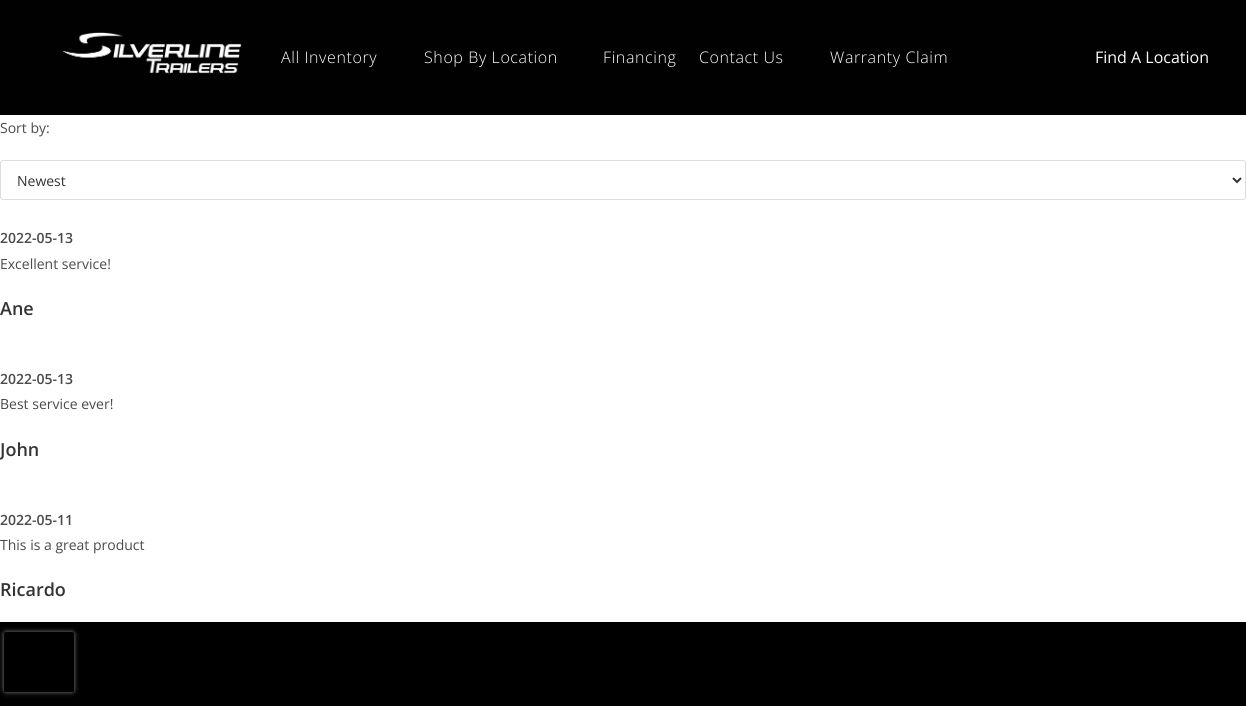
#include <cairo.h>
#include <math.h>
#include <stddef.h>


static void set_color(cairo_t *cr, unsigned color) {
    cairo_set_source_rgb(cr, (color >> 16) / 255.0, (color >> 8 & 255) / 255.0, (color & 255) / 255.0);
}

static void draw_text(cairo_t *cr, double x, double y, const char *s, const char *family, double size, int italic, int bold, unsigned color) {
    cairo_select_font_face(cr, family, italic ? CAIRO_FONT_SLANT_ITALIC : CAIRO_FONT_SLANT_NORMAL,
        bold ? CAIRO_FONT_WEIGHT_BOLD : CAIRO_FONT_WEIGHT_NORMAL);
    cairo_set_font_size(cr, size);
    set_color(cr, color);
    cairo_move_to(cr, x, y);
    cairo_show_text(cr, s);
}

static void draw_spaced(cairo_t *cr, double x, double y, const char *s, double letter, double word) {
    cairo_move_to(cr, x, y);
    while (*s) {
        char ch[5] = {0};
        int n = 0;
        do ch[n++] = *s++; while ((*s & 0xC0) == 0x80);
        cairo_show_text(cr, ch);
        cairo_rel_move_to(cr, letter + word * (*ch == ' '), 0);
    }
}

static void fill_rect(cairo_t *cr, double x, double y, double w, double h, unsigned color) {
    set_color(cr, color);
    cairo_rectangle(cr, x, y, w, h);
    cairo_fill(cr);
}

static void rounded_rect(cairo_t *cr, double x, double y, double w, double h, double r) {
    cairo_new_sub_path(cr);
    cairo_arc(cr, x + w - r, y + h - r, r, 0, M_PI / 2);
    cairo_arc(cr, x + r, y + h - r, r, M_PI / 2, M_PI);
    cairo_arc(cr, x + r, y + r, r, M_PI, 1.5 * M_PI);
    cairo_arc(cr, x + w - r, y + r, r, 1.5 * M_PI, 2 * M_PI);
    cairo_close_path(cr);
}

static void draw_shadow(cairo_t *cr, double x, double y, double w, double h, double r, double blur, double alpha) {
    cairo_push_group_with_content(cr, CAIRO_CONTENT_ALPHA);
    cairo_set_operator(cr, CAIRO_OPERATOR_SOURCE);
    for (int i = 15; i >= -15 && fmin(w, h) + blur * i / 3 > 0; i -= 2) {
        double e = blur * i / 6;
        cairo_set_source_rgba(cr, 0, 0, 0, alpha * erfc((i - 1) / 8.5) / 2);
        rounded_rect(cr, x - e, y - e, w + 2 * e, h + 2 * e, fmax(0, fmin(r + e + blur * .6, fmin(w, h) / 2 + e)));
        cairo_fill(cr);
    }
    cairo_pattern_t *soft = cairo_pop_group(cr);
    cairo_mask(cr, soft);
    cairo_pattern_destroy(soft);
}

static void draw_image(cairo_t *cr, const char *path, double x, double y, double w, double h) {
    cairo_surface_t *image = cairo_image_surface_create_from_png(path);
    cairo_save(cr);
    cairo_set_source_surface(cr, image, x, y);
    cairo_rectangle(cr, x, y, w, h);
    cairo_fill(cr);
    cairo_restore(cr);
    cairo_surface_destroy(image);
}

int main(void) {
    cairo_surface_t *surface = cairo_image_surface_create(CAIRO_FORMAT_RGB24, 1246, 706);
    cairo_t *cr = cairo_create(surface);
    cairo_font_options_t *options = cairo_font_options_create();
    cairo_font_options_set_hint_metrics(options, CAIRO_HINT_METRICS_OFF);
    cairo_font_options_set_hint_style(options, CAIRO_HINT_STYLE_NONE);
    cairo_set_font_options(cr, options);
    cairo_set_miter_limit(cr, 4);
    set_color(cr, 0xFFFFFF);
    cairo_paint(cr);
    fill_rect(cr, 0, 0, 1246, 115, 0x010101);
    draw_image(cr, "assets/img1.png", 63, 32, 179, 42);
    cairo_select_font_face(cr, "Open Sans Light", CAIRO_FONT_SLANT_NORMAL, CAIRO_FONT_WEIGHT_NORMAL);
    cairo_set_font_size(cr, 16);
    set_color(cr, 0xFFFFFF);
    draw_spaced(cr, 281, 63, "All Inventory", 0.6, 0);
    draw_spaced(cr, 424, 63, "Shop By Location", 0.6, 0);
    draw_spaced(cr, 603, 63, "Financing", 0.6, 0);
    draw_spaced(cr, 699, 63, "Contact Us", 0.6, 0);
    draw_spaced(cr, 830, 63, "Warranty Claim", 0.6, 0);
    draw_text(cr, 1095, 63, "Find A Location", "Open Sans", 16, 0, 0, 0xFFFFFF);
    draw_text(cr, 0, 133, "Sort by:", "Open Sans", 14, 0, 0, 0x4A4A4A);
    rounded_rect(cr, 0.5, 160.5, 1245, 39, 2.5);
    set_color(cr, 0xDDDDDD);
    cairo_set_line_width(cr, 1);
    cairo_stroke(cr);
    cairo_new_path(cr);
    cairo_move_to(cr, 1233, 178);
    cairo_line_to(cr, 1237, 182);
    cairo_line_to(cr, 1241, 178);
    set_color(cr, 0x333333);
    cairo_set_line_width(cr, 2);
    cairo_stroke(cr);
    draw_text(cr, 17, 186, "Newest", "Open Sans", 14, 0, 0, 0x333333);
    draw_text(cr, 0, 243, "2022-05-13", "Open Sans SemiBold", 14, 0, 0, 0x4A4A4A);
    draw_text(cr, 0, 269, "Excellent service!", "Open Sans", 14, 0, 0, 0x4A4A4A);
    draw_text(cr, 0, 315, "Ane", "Open Sans SemiBold", 18, 0, 0, 0x333333);
    draw_text(cr, 0, 384, "2022-05-13", "Open Sans SemiBold", 14, 0, 0, 0x4A4A4A);
    draw_text(cr, 0, 409, "Best service ever!", "Open Sans", 14, 0, 0, 0x4A4A4A);
    draw_text(cr, 0, 456, "John", "Open Sans SemiBold", 18, 0, 0, 0x333333);
    draw_text(cr, 0, 525, "2022-05-11", "Open Sans SemiBold", 14, 0, 0, 0x4A4A4A);
    draw_text(cr, 0, 550, "This is a great product", "Open Sans", 14, 0, 0, 0x4A4A4A);
    draw_text(cr, 0, 596, "Ricardo", "Open Sans SemiBold", 18, 0, 0, 0x333333);
    fill_rect(cr, 0, 622, 1246, 84, 0x000000);
    cairo_save(cr);
    cairo_set_fill_rule(cr, CAIRO_FILL_RULE_EVEN_ODD);
    cairo_new_path(cr);
    cairo_move_to(cr, 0, 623);
    cairo_line_to(cr, 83, 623);
    cairo_line_to(cr, 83, 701);
    cairo_line_to(cr, 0, 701);
    cairo_close_path(cr);
    cairo_move_to(cr, 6, 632);
    cairo_line_to(cr, 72, 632);
    cairo_curve_to(cr, 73, 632, 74, 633, 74, 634);
    cairo_line_to(cr, 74, 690);
    cairo_curve_to(cr, 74, 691, 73, 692, 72, 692);
    cairo_line_to(cr, 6, 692);
    cairo_curve_to(cr, 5, 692, 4, 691, 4, 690);
    cairo_line_to(cr, 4, 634);
    cairo_curve_to(cr, 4, 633, 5, 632, 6, 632);
    cairo_close_path(cr);
    cairo_clip(cr);
    set_color(cr, 0x808080);
    draw_shadow(cr, 4, 632, 70, 60, 2, 2.5, 1);
    cairo_restore(cr);
    cairo_surface_write_to_png(surface, "output.png");
    cairo_font_options_destroy(options);
    cairo_destroy(cr);
    cairo_surface_destroy(surface);
    return 0;
}
